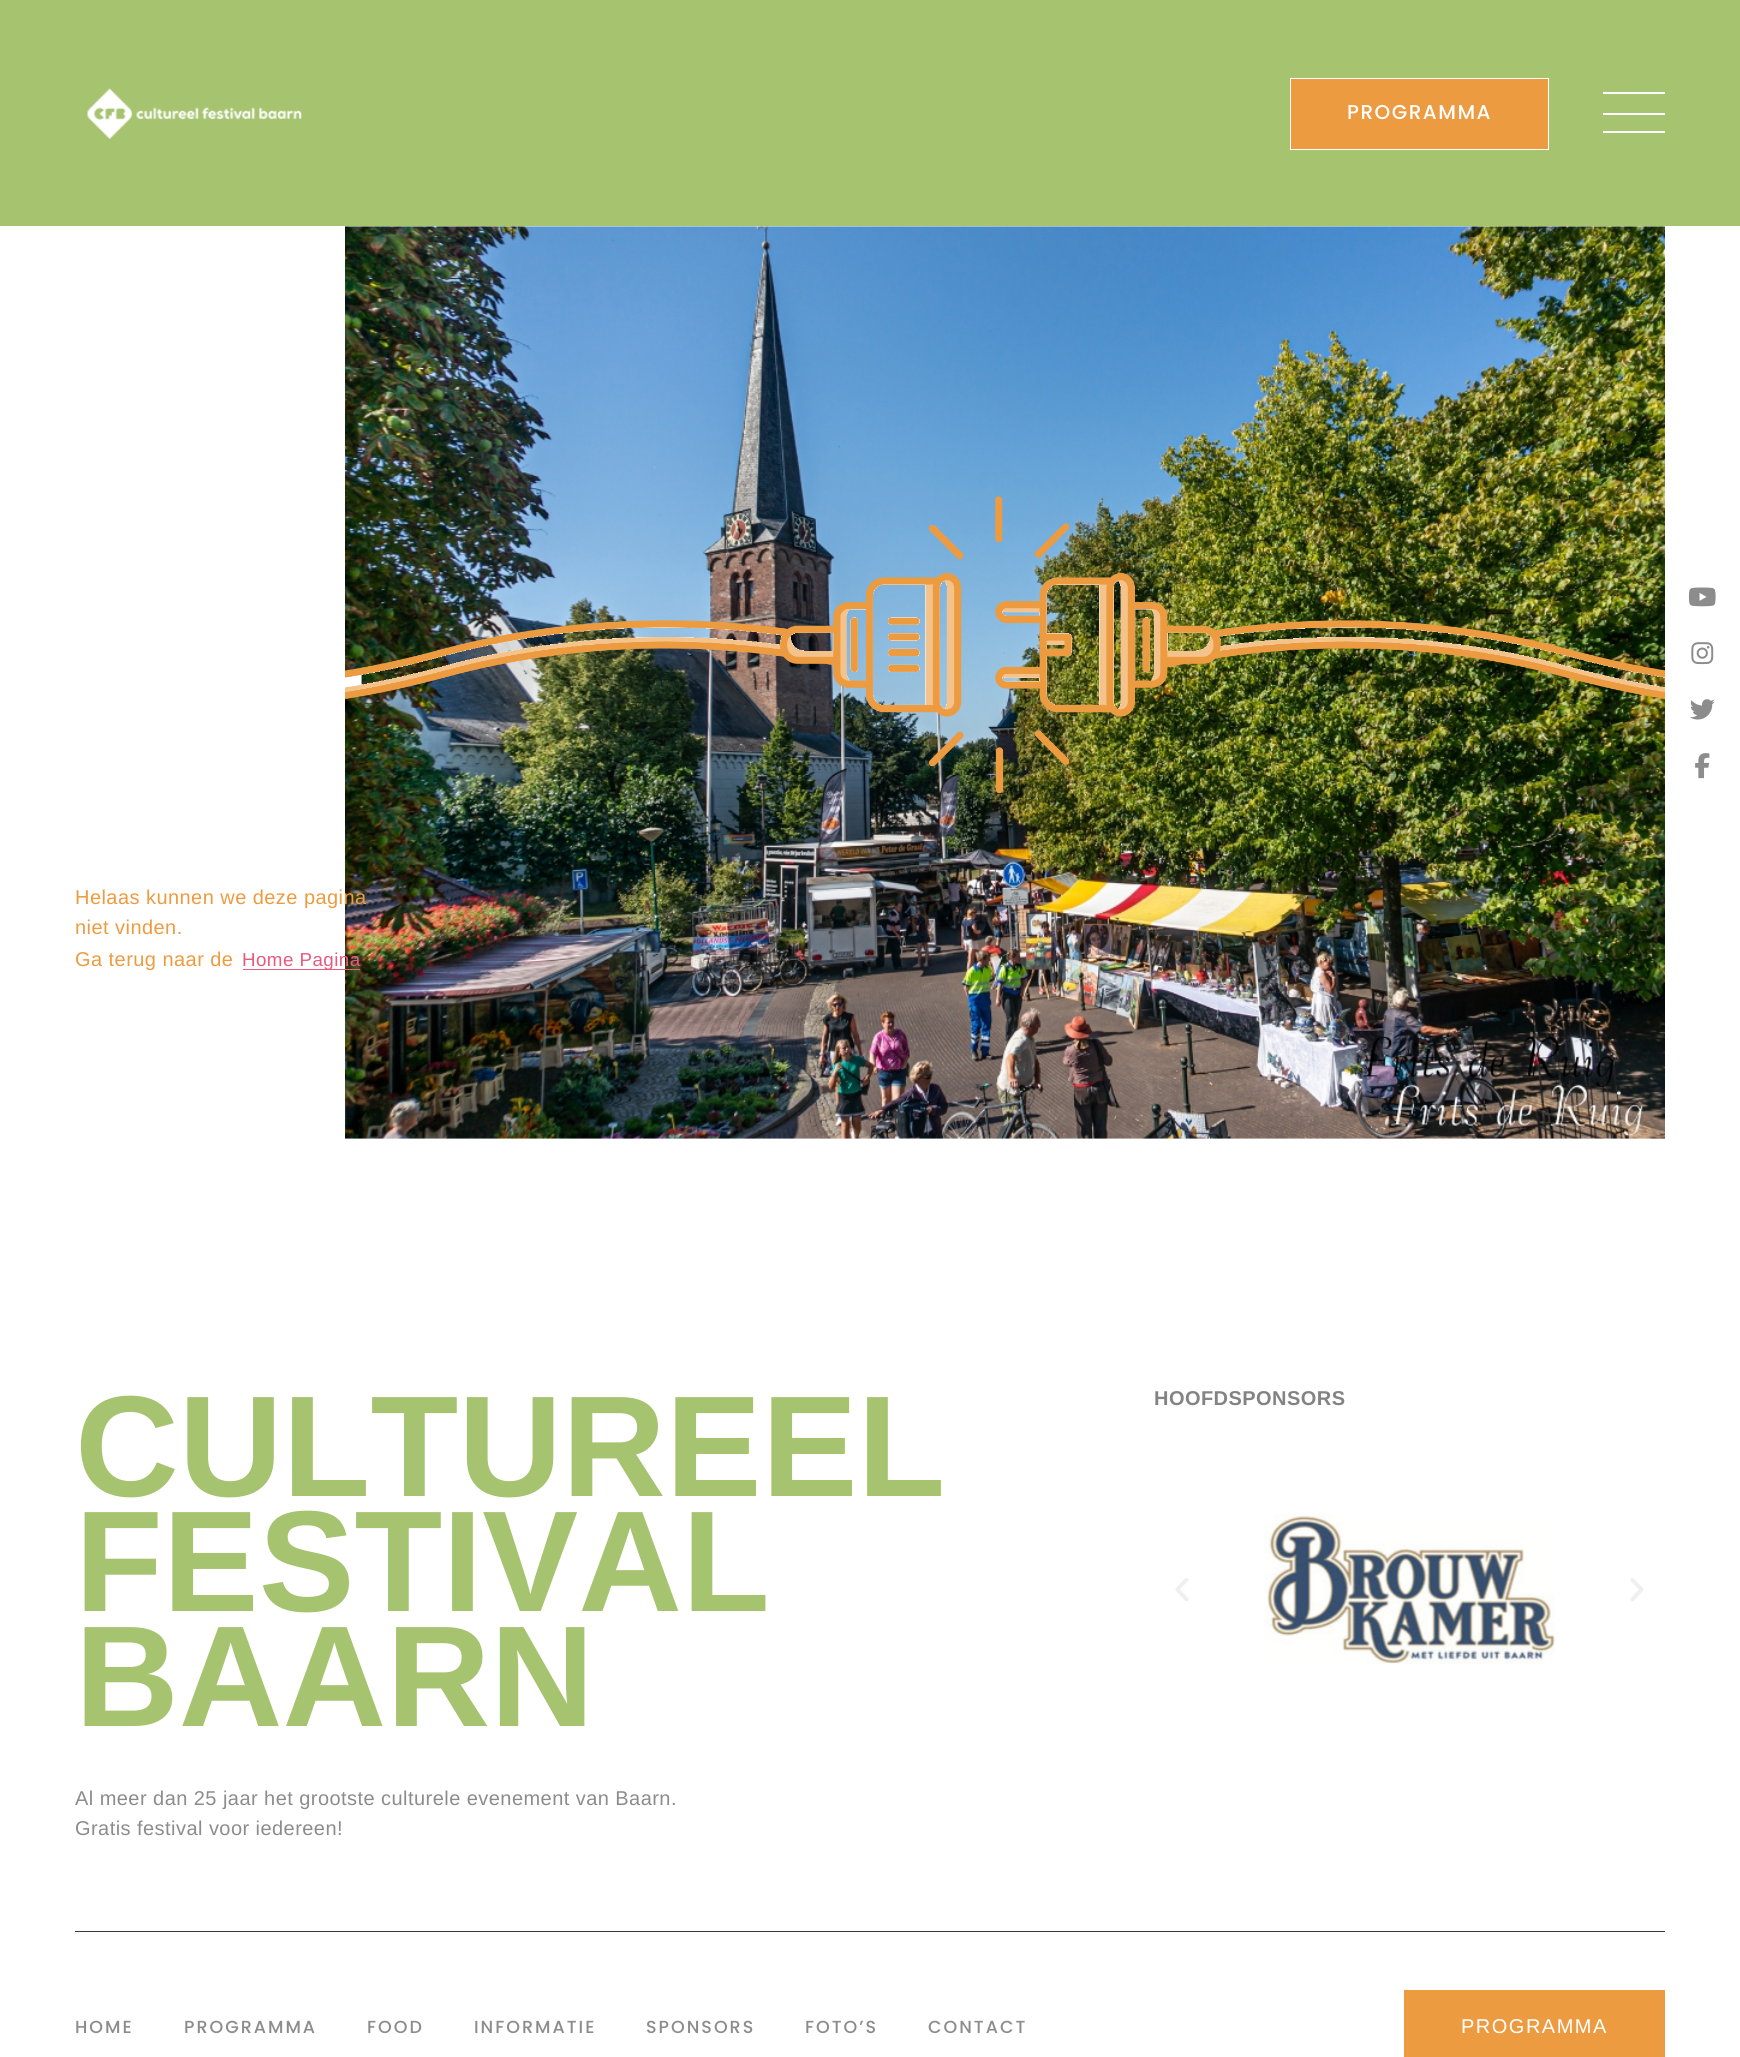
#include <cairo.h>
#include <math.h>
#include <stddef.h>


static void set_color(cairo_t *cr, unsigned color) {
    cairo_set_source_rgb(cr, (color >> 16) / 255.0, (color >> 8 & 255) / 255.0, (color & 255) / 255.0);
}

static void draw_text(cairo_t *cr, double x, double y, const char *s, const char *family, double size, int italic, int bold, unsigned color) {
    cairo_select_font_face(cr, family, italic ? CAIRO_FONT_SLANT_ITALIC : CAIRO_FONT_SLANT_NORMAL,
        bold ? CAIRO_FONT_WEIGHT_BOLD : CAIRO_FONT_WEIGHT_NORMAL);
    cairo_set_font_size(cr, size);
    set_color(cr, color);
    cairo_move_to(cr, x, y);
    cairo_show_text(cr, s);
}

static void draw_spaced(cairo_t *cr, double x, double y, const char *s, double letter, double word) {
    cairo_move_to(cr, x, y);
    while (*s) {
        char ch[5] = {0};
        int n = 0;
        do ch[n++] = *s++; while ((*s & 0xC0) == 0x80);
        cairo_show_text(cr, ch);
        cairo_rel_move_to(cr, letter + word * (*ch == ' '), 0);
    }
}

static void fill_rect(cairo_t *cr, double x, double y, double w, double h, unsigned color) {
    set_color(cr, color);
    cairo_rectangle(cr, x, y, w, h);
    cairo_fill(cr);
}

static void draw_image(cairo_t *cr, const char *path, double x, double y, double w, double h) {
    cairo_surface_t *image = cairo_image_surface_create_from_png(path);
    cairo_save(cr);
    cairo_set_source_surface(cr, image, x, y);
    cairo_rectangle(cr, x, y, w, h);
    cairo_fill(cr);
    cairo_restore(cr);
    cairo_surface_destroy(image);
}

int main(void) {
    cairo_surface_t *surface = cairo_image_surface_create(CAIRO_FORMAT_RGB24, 1740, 2057);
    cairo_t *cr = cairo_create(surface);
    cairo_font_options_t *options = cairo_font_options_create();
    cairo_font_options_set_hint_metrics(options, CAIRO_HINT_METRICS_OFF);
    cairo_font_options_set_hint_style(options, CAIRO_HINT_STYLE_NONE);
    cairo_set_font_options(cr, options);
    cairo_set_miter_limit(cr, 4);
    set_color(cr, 0xFFFFFF);
    cairo_paint(cr);
    fill_rect(cr, 0, 0, 1740, 226, 0xA6C36F);
    draw_image(cr, "assets/img1.png", 87, 88, 215, 51);
    set_color(cr, 0xED9B40);
    cairo_rectangle(cr, 1290.5, 78.5, 258, 71);
    cairo_fill_preserve(cr);
    set_color(cr, 0xFFFFFF);
    cairo_set_line_width(cr, 1);
    cairo_stroke(cr);
    cairo_select_font_face(cr, "Poppins Medium", CAIRO_FONT_SLANT_NORMAL, CAIRO_FONT_WEIGHT_NORMAL);
    cairo_set_font_size(cr, 20);
    draw_spaced(cr, 1347, 119, "PROGRAMMA", 1.5, 0);
    fill_rect(cr, 1603, 131, 62, 2, 0xFFFFFF);
    fill_rect(cr, 1603, 113, 62, 2, 0xFFFFFF);
    fill_rect(cr, 1603, 92, 62, 2, 0xFFFFFF);
    draw_image(cr, "assets/img2.png", 345, 226, 1320, 913);
    draw_image(cr, "assets/img3.png", 345, 496, 1320, 298);
    draw_image(cr, "assets/img4.png", 1688, 587, 28, 20);
    draw_image(cr, "assets/img5.png", 1691, 642, 23, 23);
    draw_image(cr, "assets/img6.png", 1690, 699, 25, 21);
    draw_image(cr, "assets/img7.png", 1695, 753, 15, 26);
    cairo_select_font_face(cr, "Liberation Sans", CAIRO_FONT_SLANT_NORMAL, CAIRO_FONT_WEIGHT_NORMAL);
    set_color(cr, 0xED9B40);
    draw_spaced(cr, 75, 904, "Helaas kunnen we deze pagina", 0.45, 0);
    draw_spaced(cr, 75, 934, "niet vinden.", 0.45, 0);
    draw_spaced(cr, 75, 966, "Ga terug naar de", 0.45, 0);
    fill_rect(cr, 243, 969, 117, 1, 0xE75A7C);
    cairo_set_font_size(cr, 18.75);
    draw_spaced(cr, 242, 966, "Home Pagina", 0.45, 0);
    draw_text(cr, 75, 1496, "CULTUREEL", "Liberation Sans", 143.75, 0, 1, 0xA6C36F);
    draw_text(cr, 75, 1611, "FESTIVAL", "Liberation Sans", 143.75, 0, 1, 0xA6C36F);
    draw_text(cr, 75, 1726, "BAARN", "Liberation Sans", 143.75, 0, 1, 0xA6C36F);
    cairo_select_font_face(cr, "Liberation Sans", CAIRO_FONT_SLANT_NORMAL, CAIRO_FONT_WEIGHT_NORMAL);
    cairo_set_font_size(cr, 20);
    set_color(cr, 0x8C8C8C);
    draw_spaced(cr, 75, 1805, "Al meer dan 25 jaar het grootste culturele evenement van Baarn.", 0.45, 0);
    draw_spaced(cr, 75, 1835, "Gratis festival voor iedereen!", 0.45, 0);
    cairo_select_font_face(cr, "Liberation Sans", CAIRO_FONT_SLANT_NORMAL, CAIRO_FONT_WEIGHT_BOLD);
    set_color(cr, 0x838383);
    draw_spaced(cr, 1154, 1405, "HOOFDSPONSORS", 0.45, 0);
    draw_image(cr, "assets/img8.png", 1175, 1578, 14, 24);
    draw_image(cr, "assets/img9.png", 1264, 1514, 291, 150);
    draw_image(cr, "assets/img10.png", 1630, 1578, 14, 24);
    fill_rect(cr, 75, 1931, 1590, 1, 0x383838);
    cairo_select_font_face(cr, "Poppins Medium", CAIRO_FONT_SLANT_NORMAL, CAIRO_FONT_WEIGHT_NORMAL);
    cairo_set_font_size(cr, 17.5);
    set_color(cr, 0x8C8C8C);
    draw_spaced(cr, 75, 2033, "HOME", 2, 0);
    draw_spaced(cr, 184, 2033, "PROGRAMMA", 2, 0);
    draw_spaced(cr, 367, 2033, "FOOD", 2, 0);
    draw_spaced(cr, 474, 2033, "INFORMATIE", 2, 0);
    draw_spaced(cr, 646, 2033, "SPONSORS", 2, 0);
    draw_spaced(cr, 805, 2033, "FOTO’S", 2, 0);
    draw_spaced(cr, 928, 2033, "CONTACT", 2, 0);
    fill_rect(cr, 1404, 1990, 261, 67, 0xED9B40);
    cairo_select_font_face(cr, "Liberation Sans", CAIRO_FONT_SLANT_NORMAL, CAIRO_FONT_WEIGHT_NORMAL);
    cairo_set_font_size(cr, 20);
    set_color(cr, 0xFFFFFF);
    draw_spaced(cr, 1461, 2033, "PROGRAMMA", 1.5, 0);
    cairo_surface_write_to_png(surface, "output.png");
    cairo_font_options_destroy(options);
    cairo_destroy(cr);
    cairo_surface_destroy(surface);
    return 0;
}
